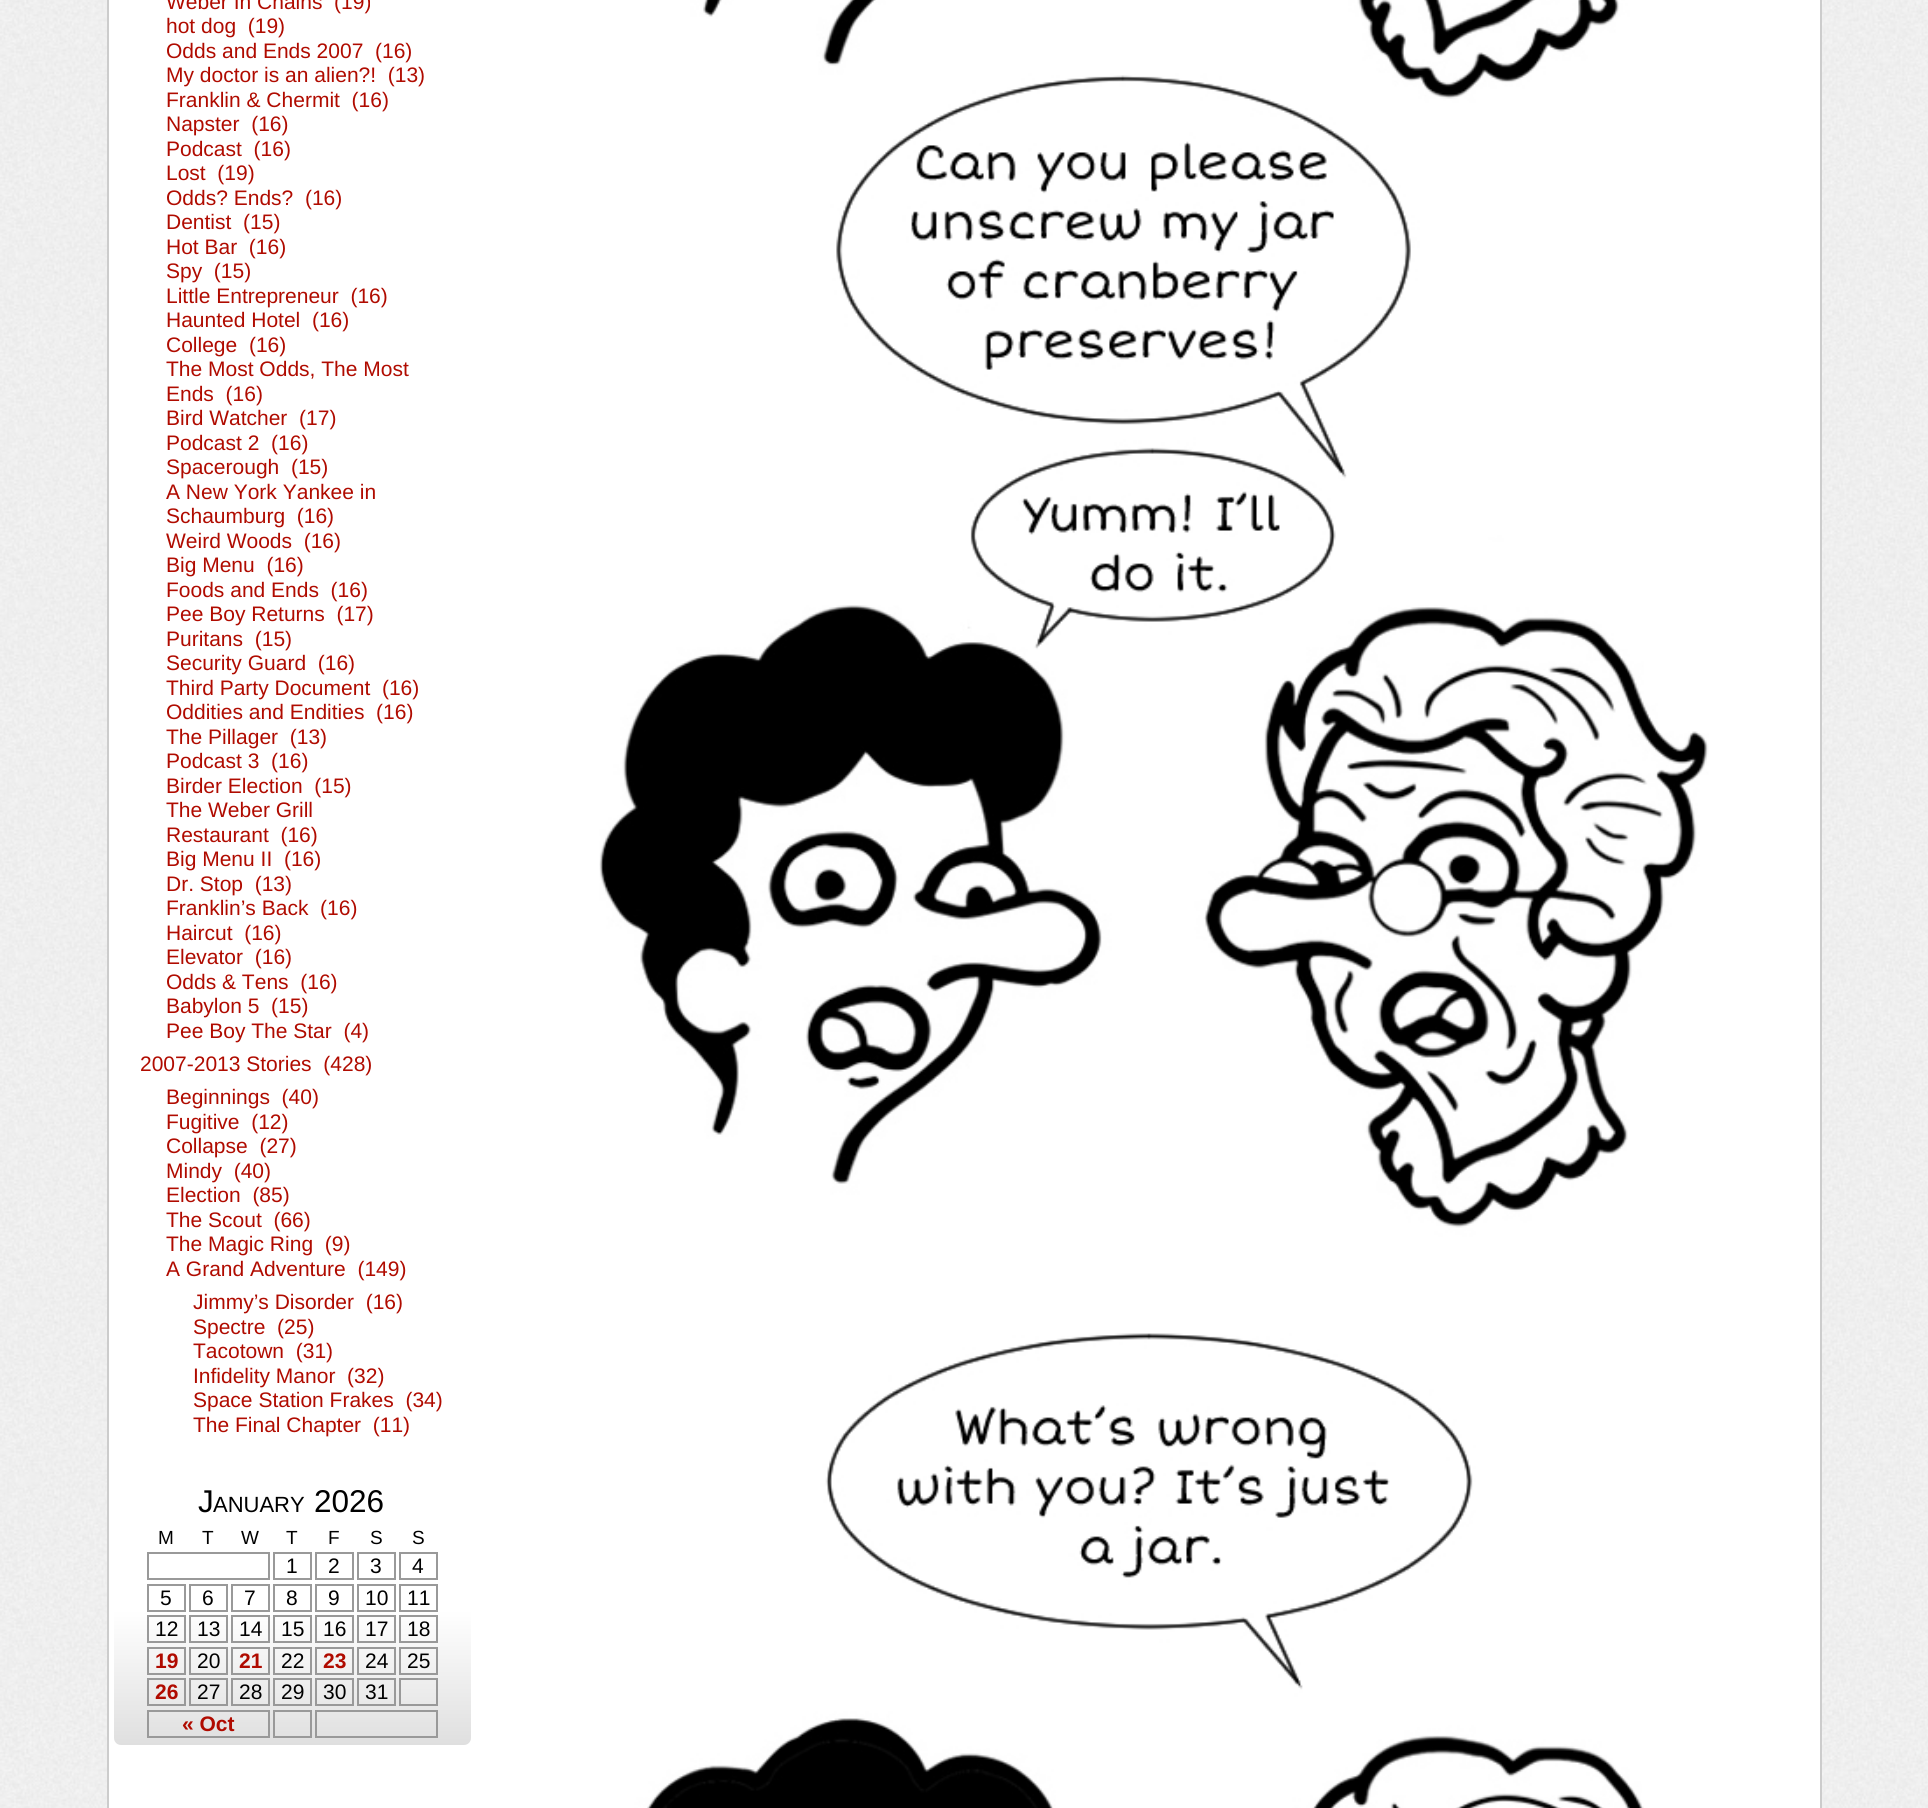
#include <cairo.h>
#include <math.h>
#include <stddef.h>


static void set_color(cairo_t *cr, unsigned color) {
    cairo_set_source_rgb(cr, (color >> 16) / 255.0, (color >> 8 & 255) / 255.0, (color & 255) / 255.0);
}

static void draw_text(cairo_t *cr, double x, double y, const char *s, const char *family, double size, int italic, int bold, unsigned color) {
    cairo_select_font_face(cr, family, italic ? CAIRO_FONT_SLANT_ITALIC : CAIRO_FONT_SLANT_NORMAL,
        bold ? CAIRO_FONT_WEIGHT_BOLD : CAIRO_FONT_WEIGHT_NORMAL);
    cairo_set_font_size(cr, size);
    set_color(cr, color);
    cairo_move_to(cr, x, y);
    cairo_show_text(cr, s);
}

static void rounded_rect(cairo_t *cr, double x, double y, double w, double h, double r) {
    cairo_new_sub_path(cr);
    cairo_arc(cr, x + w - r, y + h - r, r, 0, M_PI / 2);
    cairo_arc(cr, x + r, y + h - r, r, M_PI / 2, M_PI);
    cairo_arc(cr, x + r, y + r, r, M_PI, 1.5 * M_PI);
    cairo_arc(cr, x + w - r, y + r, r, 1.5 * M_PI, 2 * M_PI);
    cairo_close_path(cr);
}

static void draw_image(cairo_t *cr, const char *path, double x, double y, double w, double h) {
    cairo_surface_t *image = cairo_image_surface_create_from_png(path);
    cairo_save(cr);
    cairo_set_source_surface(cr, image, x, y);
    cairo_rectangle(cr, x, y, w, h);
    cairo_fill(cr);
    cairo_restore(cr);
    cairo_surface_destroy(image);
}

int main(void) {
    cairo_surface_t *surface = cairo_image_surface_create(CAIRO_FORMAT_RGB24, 1928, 1808);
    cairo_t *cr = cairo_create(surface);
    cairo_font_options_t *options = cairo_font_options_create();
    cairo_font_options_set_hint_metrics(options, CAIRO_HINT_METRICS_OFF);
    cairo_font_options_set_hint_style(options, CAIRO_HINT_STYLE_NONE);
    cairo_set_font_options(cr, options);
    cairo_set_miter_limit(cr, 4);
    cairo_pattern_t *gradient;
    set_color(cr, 0xFFFFFF);
    cairo_paint(cr);
    draw_image(cr, "assets/img1.png", 0, 0, 1928, 1808);
    set_color(cr, 0xFFFFFF);
    cairo_rectangle(cr, 108, -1, 1713, 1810);
    cairo_fill_preserve(cr);
    set_color(cr, 0xCCCCCC);
    cairo_stroke(cr);
    draw_text(cr, 166, 9, "Weber In Chains  (19)", "Liberation Sans", 21, 0, 0, 0xB00B00);
    draw_text(cr, 166, 33, "hot dog  (19)", "Liberation Sans", 21, 0, 0, 0xB00B00);
    draw_text(cr, 166, 58, "Odds and Ends 2007  (16)", "Liberation Sans", 21, 0, 0, 0xB00B00);
    draw_text(cr, 166, 82, "My doctor is an alien?!  (13)", "Liberation Sans", 21, 0, 0, 0xB00B00);
    draw_text(cr, 166, 107, "Franklin & Chermit  (16)", "Liberation Sans", 21, 0, 0, 0xB00B00);
    draw_text(cr, 166, 131, "Napster  (16)", "Liberation Sans", 21, 0, 0, 0xB00B00);
    draw_text(cr, 166, 156, "Podcast  (16)", "Liberation Sans", 21, 0, 0, 0xB00B00);
    draw_text(cr, 166, 180, "Lost  (19)", "Liberation Sans", 21, 0, 0, 0xB00B00);
    draw_text(cr, 166, 205, "Odds? Ends?  (16)", "Liberation Sans", 21, 0, 0, 0xB00B00);
    draw_text(cr, 166, 229, "Dentist  (15)", "Liberation Sans", 21, 0, 0, 0xB00B00);
    draw_text(cr, 166, 254, "Hot Bar  (16)", "Liberation Sans", 21, 0, 0, 0xB00B00);
    draw_text(cr, 166, 278, "Spy  (15)", "Liberation Sans", 21, 0, 0, 0xB00B00);
    draw_text(cr, 166, 303, "Little Entrepreneur  (16)", "Liberation Sans", 21, 0, 0, 0xB00B00);
    draw_text(cr, 166, 327, "Haunted Hotel  (16)", "Liberation Sans", 21, 0, 0, 0xB00B00);
    draw_text(cr, 166, 352, "College  (16)", "Liberation Sans", 21, 0, 0, 0xB00B00);
    draw_text(cr, 166, 376, "The Most Odds, The Most", "Liberation Sans", 21, 0, 0, 0xB00B00);
    draw_text(cr, 166, 401, "Ends  (16)", "Liberation Sans", 21, 0, 0, 0xB00B00);
    draw_text(cr, 166, 425, "Bird Watcher  (17)", "Liberation Sans", 21, 0, 0, 0xB00B00);
    draw_text(cr, 166, 450, "Podcast 2  (16)", "Liberation Sans", 21, 0, 0, 0xB00B00);
    draw_text(cr, 166, 474, "Spacerough  (15)", "Liberation Sans", 21, 0, 0, 0xB00B00);
    draw_text(cr, 166, 499, "A New York Yankee in", "Liberation Sans", 21, 0, 0, 0xB00B00);
    draw_text(cr, 166, 523, "Schaumburg  (16)", "Liberation Sans", 21, 0, 0, 0xB00B00);
    draw_text(cr, 166, 548, "Weird Woods  (16)", "Liberation Sans", 21, 0, 0, 0xB00B00);
    draw_text(cr, 166, 572, "Big Menu  (16)", "Liberation Sans", 21, 0, 0, 0xB00B00);
    draw_text(cr, 166, 597, "Foods and Ends  (16)", "Liberation Sans", 21, 0, 0, 0xB00B00);
    draw_text(cr, 166, 621, "Pee Boy Returns  (17)", "Liberation Sans", 21, 0, 0, 0xB00B00);
    draw_text(cr, 166, 646, "Puritans  (15)", "Liberation Sans", 21, 0, 0, 0xB00B00);
    draw_text(cr, 166, 670, "Security Guard  (16)", "Liberation Sans", 21, 0, 0, 0xB00B00);
    draw_text(cr, 166, 695, "Third Party Document  (16)", "Liberation Sans", 21, 0, 0, 0xB00B00);
    draw_text(cr, 166, 719, "Oddities and Endities  (16)", "Liberation Sans", 21, 0, 0, 0xB00B00);
    draw_text(cr, 166, 744, "The Pillager  (13)", "Liberation Sans", 21, 0, 0, 0xB00B00);
    draw_text(cr, 166, 768, "Podcast 3  (16)", "Liberation Sans", 21, 0, 0, 0xB00B00);
    draw_text(cr, 166, 793, "Birder Election  (15)", "Liberation Sans", 21, 0, 0, 0xB00B00);
    draw_text(cr, 166, 817, "The Weber Grill", "Liberation Sans", 21, 0, 0, 0xB00B00);
    draw_text(cr, 166, 842, "Restaurant  (16)", "Liberation Sans", 21, 0, 0, 0xB00B00);
    draw_text(cr, 166, 866, "Big Menu II  (16)", "Liberation Sans", 21, 0, 0, 0xB00B00);
    draw_text(cr, 166, 891, "Dr. Stop  (13)", "Liberation Sans", 21, 0, 0, 0xB00B00);
    draw_text(cr, 166, 915, "Franklin’s Back  (16)", "Liberation Sans", 21, 0, 0, 0xB00B00);
    draw_text(cr, 166, 940, "Haircut  (16)", "Liberation Sans", 21, 0, 0, 0xB00B00);
    draw_text(cr, 166, 964, "Elevator  (16)", "Liberation Sans", 21, 0, 0, 0xB00B00);
    draw_text(cr, 166, 989, "Odds & Tens  (16)", "Liberation Sans", 21, 0, 0, 0xB00B00);
    draw_text(cr, 166, 1013, "Babylon 5  (15)", "Liberation Sans", 21, 0, 0, 0xB00B00);
    draw_text(cr, 166, 1038, "Pee Boy The Star  (4)", "Liberation Sans", 21, 0, 0, 0xB00B00);
    draw_text(cr, 140, 1071, "2007-2013 Stories  (428)", "Liberation Sans", 21, 0, 0, 0xB00B00);
    draw_text(cr, 166, 1104, "Beginnings  (40)", "Liberation Sans", 21, 0, 0, 0xB00B00);
    draw_text(cr, 166, 1129, "Fugitive  (12)", "Liberation Sans", 21, 0, 0, 0xB00B00);
    draw_text(cr, 166, 1153, "Collapse  (27)", "Liberation Sans", 21, 0, 0, 0xB00B00);
    draw_text(cr, 166, 1178, "Mindy  (40)", "Liberation Sans", 21, 0, 0, 0xB00B00);
    draw_text(cr, 166, 1202, "Election  (85)", "Liberation Sans", 21, 0, 0, 0xB00B00);
    draw_text(cr, 166, 1227, "The Scout  (66)", "Liberation Sans", 21, 0, 0, 0xB00B00);
    draw_text(cr, 166, 1251, "The Magic Ring  (9)", "Liberation Sans", 21, 0, 0, 0xB00B00);
    draw_text(cr, 166, 1276, "A Grand Adventure  (149)", "Liberation Sans", 21, 0, 0, 0xB00B00);
    draw_text(cr, 193, 1309, "Jimmy’s Disorder  (16)", "Liberation Sans", 21, 0, 0, 0xB00B00);
    draw_text(cr, 193, 1334, "Spectre  (25)", "Liberation Sans", 21, 0, 0, 0xB00B00);
    draw_text(cr, 193, 1358, "Tacotown  (31)", "Liberation Sans", 21, 0, 0, 0xB00B00);
    draw_text(cr, 193, 1383, "Infidelity Manor  (32)", "Liberation Sans", 21, 0, 0, 0xB00B00);
    draw_text(cr, 193, 1407, "Space Station Frakes  (34)", "Liberation Sans", 21, 0, 0, 0xB00B00);
    draw_text(cr, 193, 1432, "The Final Chapter  (11)", "Liberation Sans", 21, 0, 0, 0xB00B00);
    gradient = cairo_pattern_create_linear(292, 1481, 292, 1745);
    cairo_pattern_add_color_stop_rgba(gradient, 0, 1, 1, 1, 1);
    cairo_pattern_add_color_stop_rgba(gradient, 0.49, 1, 1, 1, 1);
    cairo_pattern_add_color_stop_rgba(gradient, 1, 0.875, 0.875, 0.875, 1);
    cairo_set_source(cr, gradient);
    cairo_pattern_destroy(gradient);
    rounded_rect(cr, 114, 1481, 357, 264, 7);
    cairo_fill(cr);
    draw_text(cr, 198, 1512, "J", "Liberation Sans", 31.5, 0, 0, 0x000000);
    draw_text(cr, 213, 1512, "ANUARY", "Liberation Sans", 22, 0, 0, 0x000000);
    draw_text(cr, 314, 1512, "2026", "Liberation Sans", 31.5, 0, 0, 0x000000);
    draw_text(cr, 158, 1544, "M", "Liberation Sans", 19, 0, 0, 0x000000);
    draw_text(cr, 202, 1544, "T", "Liberation Sans", 19, 0, 0, 0x000000);
    draw_text(cr, 241, 1544, "W", "Liberation Sans", 19, 0, 0, 0x000000);
    draw_text(cr, 286, 1544, "T", "Liberation Sans", 19, 0, 0, 0x000000);
    draw_text(cr, 328, 1544, "F", "Liberation Sans", 19, 0, 0, 0x000000);
    draw_text(cr, 370, 1544, "S", "Liberation Sans", 19, 0, 0, 0x000000);
    draw_text(cr, 412, 1544, "S", "Liberation Sans", 19, 0, 0, 0x000000);
    cairo_rectangle(cr, 148, 1553, 121, 26);
    set_color(cr, 0x999999);
    cairo_stroke(cr);
    cairo_rectangle(cr, 274, 1553, 37, 26);
    cairo_stroke(cr);
    draw_text(cr, 286, 1573, "1", "Liberation Sans", 21, 0, 0, 0x000000);
    cairo_rectangle(cr, 316, 1553, 37, 26);
    set_color(cr, 0x999999);
    cairo_stroke(cr);
    draw_text(cr, 328, 1573, "2", "Liberation Sans", 21, 0, 0, 0x000000);
    cairo_rectangle(cr, 358, 1553, 37, 26);
    set_color(cr, 0x999999);
    cairo_stroke(cr);
    draw_text(cr, 370, 1573, "3", "Liberation Sans", 21, 0, 0, 0x000000);
    cairo_rectangle(cr, 400, 1553, 37, 26);
    set_color(cr, 0x999999);
    cairo_stroke(cr);
    draw_text(cr, 412, 1573, "4", "Liberation Sans", 21, 0, 0, 0x000000);
    cairo_rectangle(cr, 148, 1585, 37, 26);
    set_color(cr, 0x999999);
    cairo_stroke(cr);
    draw_text(cr, 160, 1605, "5", "Liberation Sans", 21, 0, 0, 0x000000);
    cairo_rectangle(cr, 190, 1585, 37, 26);
    set_color(cr, 0x999999);
    cairo_stroke(cr);
    draw_text(cr, 202, 1605, "6", "Liberation Sans", 21, 0, 0, 0x000000);
    cairo_rectangle(cr, 232, 1585, 37, 26);
    set_color(cr, 0x999999);
    cairo_stroke(cr);
    draw_text(cr, 244, 1605, "7", "Liberation Sans", 21, 0, 0, 0x000000);
    cairo_rectangle(cr, 274, 1585, 37, 26);
    set_color(cr, 0x999999);
    cairo_stroke(cr);
    draw_text(cr, 286, 1605, "8", "Liberation Sans", 21, 0, 0, 0x000000);
    cairo_rectangle(cr, 316, 1585, 37, 26);
    set_color(cr, 0x999999);
    cairo_stroke(cr);
    draw_text(cr, 328, 1605, "9", "Liberation Sans", 21, 0, 0, 0x000000);
    cairo_rectangle(cr, 358, 1585, 37, 26);
    set_color(cr, 0x999999);
    cairo_stroke(cr);
    draw_text(cr, 365, 1605, "10", "Liberation Sans", 21, 0, 0, 0x000000);
    cairo_rectangle(cr, 400, 1585, 37, 26);
    set_color(cr, 0x999999);
    cairo_stroke(cr);
    draw_text(cr, 407, 1605, "11", "Liberation Sans", 21, 0, 0, 0x000000);
    cairo_rectangle(cr, 148, 1616, 37, 26);
    set_color(cr, 0x999999);
    cairo_stroke(cr);
    draw_text(cr, 155, 1636, "12", "Liberation Sans", 21, 0, 0, 0x000000);
    cairo_rectangle(cr, 190, 1616, 37, 26);
    set_color(cr, 0x999999);
    cairo_stroke(cr);
    draw_text(cr, 197, 1636, "13", "Liberation Sans", 21, 0, 0, 0x000000);
    cairo_rectangle(cr, 232, 1616, 37, 26);
    set_color(cr, 0x999999);
    cairo_stroke(cr);
    draw_text(cr, 239, 1636, "14", "Liberation Sans", 21, 0, 0, 0x000000);
    cairo_rectangle(cr, 274, 1616, 37, 26);
    set_color(cr, 0x999999);
    cairo_stroke(cr);
    draw_text(cr, 281, 1636, "15", "Liberation Sans", 21, 0, 0, 0x000000);
    cairo_rectangle(cr, 316, 1616, 37, 26);
    set_color(cr, 0x999999);
    cairo_stroke(cr);
    draw_text(cr, 323, 1636, "16", "Liberation Sans", 21, 0, 0, 0x000000);
    cairo_rectangle(cr, 358, 1616, 37, 26);
    set_color(cr, 0x999999);
    cairo_stroke(cr);
    draw_text(cr, 365, 1636, "17", "Liberation Sans", 21, 0, 0, 0x000000);
    cairo_rectangle(cr, 400, 1616, 37, 26);
    set_color(cr, 0x999999);
    cairo_stroke(cr);
    draw_text(cr, 407, 1636, "18", "Liberation Sans", 21, 0, 0, 0x000000);
    cairo_rectangle(cr, 148, 1648, 37, 26);
    set_color(cr, 0x999999);
    cairo_stroke(cr);
    draw_text(cr, 155, 1668, "19", "Liberation Sans", 21, 0, 1, 0xB00B00);
    cairo_rectangle(cr, 190, 1648, 37, 26);
    set_color(cr, 0x999999);
    cairo_stroke(cr);
    draw_text(cr, 197, 1668, "20", "Liberation Sans", 21, 0, 0, 0x000000);
    cairo_rectangle(cr, 232, 1648, 37, 26);
    set_color(cr, 0x999999);
    cairo_stroke(cr);
    draw_text(cr, 239, 1668, "21", "Liberation Sans", 21, 0, 1, 0xB00B00);
    cairo_rectangle(cr, 274, 1648, 37, 26);
    set_color(cr, 0x999999);
    cairo_stroke(cr);
    draw_text(cr, 281, 1668, "22", "Liberation Sans", 21, 0, 0, 0x000000);
    cairo_rectangle(cr, 316, 1648, 37, 26);
    set_color(cr, 0x999999);
    cairo_stroke(cr);
    draw_text(cr, 323, 1668, "23", "Liberation Sans", 21, 0, 1, 0xB00B00);
    cairo_rectangle(cr, 358, 1648, 37, 26);
    set_color(cr, 0x999999);
    cairo_stroke(cr);
    draw_text(cr, 365, 1668, "24", "Liberation Sans", 21, 0, 0, 0x000000);
    cairo_rectangle(cr, 400, 1648, 37, 26);
    set_color(cr, 0x999999);
    cairo_stroke(cr);
    draw_text(cr, 407, 1668, "25", "Liberation Sans", 21, 0, 0, 0x000000);
    cairo_rectangle(cr, 148, 1679, 37, 26);
    set_color(cr, 0x999999);
    cairo_stroke(cr);
    draw_text(cr, 155, 1699, "26", "Liberation Sans", 21, 0, 1, 0xB00B00);
    cairo_rectangle(cr, 190, 1679, 37, 26);
    set_color(cr, 0x999999);
    cairo_stroke(cr);
    draw_text(cr, 197, 1699, "27", "Liberation Sans", 21, 0, 0, 0x000000);
    cairo_rectangle(cr, 232, 1679, 37, 26);
    set_color(cr, 0x999999);
    cairo_stroke(cr);
    draw_text(cr, 239, 1699, "28", "Liberation Sans", 21, 0, 0, 0x000000);
    cairo_rectangle(cr, 274, 1679, 37, 26);
    set_color(cr, 0x999999);
    cairo_stroke(cr);
    draw_text(cr, 281, 1699, "29", "Liberation Sans", 21, 0, 0, 0x000000);
    cairo_rectangle(cr, 316, 1679, 37, 26);
    set_color(cr, 0x999999);
    cairo_stroke(cr);
    draw_text(cr, 323, 1699, "30", "Liberation Sans", 21, 0, 0, 0x000000);
    cairo_rectangle(cr, 358, 1679, 37, 26);
    set_color(cr, 0x999999);
    cairo_stroke(cr);
    draw_text(cr, 365, 1699, "31", "Liberation Sans", 21, 0, 0, 0x000000);
    cairo_rectangle(cr, 400, 1679, 37, 26);
    set_color(cr, 0x999999);
    cairo_stroke(cr);
    cairo_rectangle(cr, 148, 1711, 121, 26);
    cairo_stroke(cr);
    draw_text(cr, 182, 1731, "« Oct", "Liberation Sans", 21, 0, 1, 0xB00B00);
    cairo_rectangle(cr, 274, 1711, 37, 26);
    set_color(cr, 0x999999);
    cairo_stroke(cr);
    cairo_rectangle(cr, 316, 1711, 121, 26);
    cairo_stroke(cr);
    draw_image(cr, "assets/img2.png", 599, 0, 1110, 1808);
    cairo_surface_write_to_png(surface, "output.png");
    cairo_font_options_destroy(options);
    cairo_destroy(cr);
    cairo_surface_destroy(surface);
    return 0;
}
